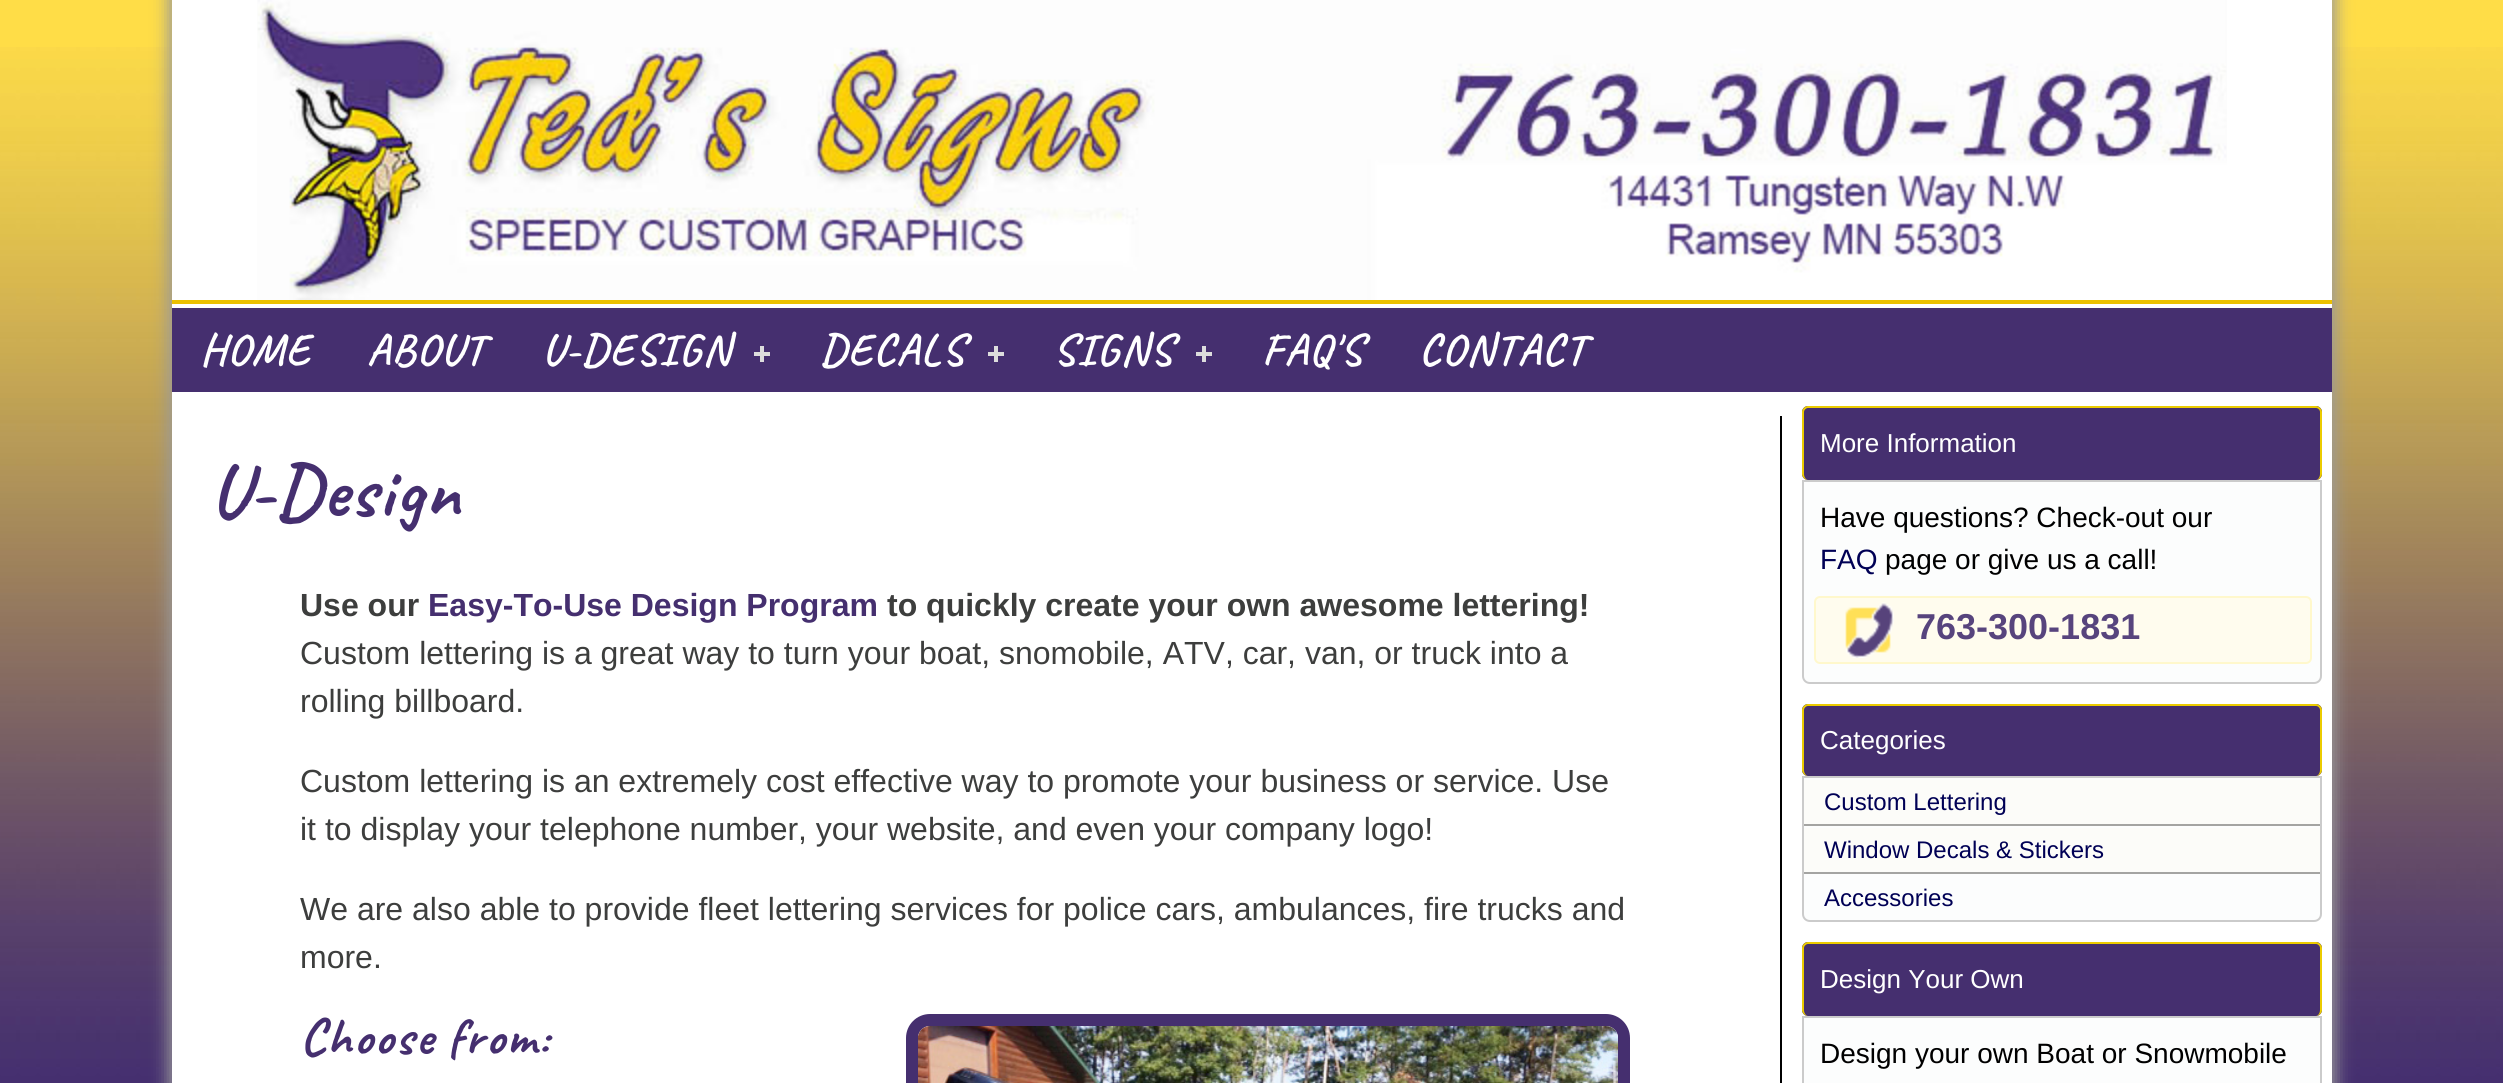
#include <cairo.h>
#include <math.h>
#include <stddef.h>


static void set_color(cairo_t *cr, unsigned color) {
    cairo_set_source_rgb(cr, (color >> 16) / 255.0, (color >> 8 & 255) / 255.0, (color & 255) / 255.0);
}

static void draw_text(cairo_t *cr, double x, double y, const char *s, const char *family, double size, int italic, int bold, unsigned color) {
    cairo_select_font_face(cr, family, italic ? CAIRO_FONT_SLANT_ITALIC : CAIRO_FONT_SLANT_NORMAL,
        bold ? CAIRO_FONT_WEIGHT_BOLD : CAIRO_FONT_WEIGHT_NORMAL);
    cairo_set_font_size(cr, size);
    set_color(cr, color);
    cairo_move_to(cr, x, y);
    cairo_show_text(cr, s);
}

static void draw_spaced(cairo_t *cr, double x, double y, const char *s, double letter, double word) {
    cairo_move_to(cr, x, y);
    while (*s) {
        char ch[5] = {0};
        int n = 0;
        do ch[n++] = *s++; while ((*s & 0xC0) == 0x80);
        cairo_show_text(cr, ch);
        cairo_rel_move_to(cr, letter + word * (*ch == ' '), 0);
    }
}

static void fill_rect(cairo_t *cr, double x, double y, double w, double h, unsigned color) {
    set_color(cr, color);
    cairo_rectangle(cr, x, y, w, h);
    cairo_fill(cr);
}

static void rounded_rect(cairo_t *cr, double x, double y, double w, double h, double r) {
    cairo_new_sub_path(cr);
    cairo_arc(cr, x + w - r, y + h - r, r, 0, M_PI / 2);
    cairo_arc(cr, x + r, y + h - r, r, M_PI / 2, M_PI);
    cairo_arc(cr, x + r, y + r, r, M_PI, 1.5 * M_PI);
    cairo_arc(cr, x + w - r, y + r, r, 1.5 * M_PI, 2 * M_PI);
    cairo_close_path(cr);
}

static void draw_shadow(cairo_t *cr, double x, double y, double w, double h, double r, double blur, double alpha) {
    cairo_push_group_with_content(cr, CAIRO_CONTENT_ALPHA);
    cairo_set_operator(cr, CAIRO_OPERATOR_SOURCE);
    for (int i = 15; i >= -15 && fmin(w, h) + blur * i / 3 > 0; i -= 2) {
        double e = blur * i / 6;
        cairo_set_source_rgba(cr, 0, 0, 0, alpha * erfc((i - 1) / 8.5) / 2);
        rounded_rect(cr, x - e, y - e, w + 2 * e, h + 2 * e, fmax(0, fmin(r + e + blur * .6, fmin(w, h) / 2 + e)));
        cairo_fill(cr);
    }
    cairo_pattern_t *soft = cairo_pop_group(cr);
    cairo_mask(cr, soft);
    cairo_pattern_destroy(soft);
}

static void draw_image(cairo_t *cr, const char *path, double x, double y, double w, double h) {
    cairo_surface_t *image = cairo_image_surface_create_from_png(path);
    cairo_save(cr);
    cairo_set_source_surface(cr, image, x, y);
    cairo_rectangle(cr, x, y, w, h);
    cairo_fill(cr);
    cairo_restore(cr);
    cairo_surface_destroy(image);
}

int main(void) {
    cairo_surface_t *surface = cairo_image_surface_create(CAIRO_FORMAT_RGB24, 2503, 1083);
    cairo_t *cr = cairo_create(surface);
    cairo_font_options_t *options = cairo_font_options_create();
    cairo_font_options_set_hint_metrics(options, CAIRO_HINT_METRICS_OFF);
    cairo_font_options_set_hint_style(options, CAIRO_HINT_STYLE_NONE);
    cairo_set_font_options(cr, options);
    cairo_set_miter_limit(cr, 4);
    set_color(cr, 0xFFDD47);
    cairo_paint(cr);
    draw_image(cr, "assets/img1.png", 0, 47, 2503, 1036);
    set_color(cr, 0x999999);
    draw_shadow(cr, 168, -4, 2168, 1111, 0, 8, 1);
    fill_rect(cr, 172, 0, 2160, 1083, 0xFFFFFF);
    draw_image(cr, "assets/img2.png", 257, 0, 1970, 300);
    fill_rect(cr, 172, 300, 2160, 4, 0xEBC000);
    fill_rect(cr, 172, 308, 2160, 84, 0x452F6F);
    cairo_select_font_face(cr, "Caveat", CAIRO_FONT_SLANT_NORMAL, CAIRO_FONT_WEIGHT_BOLD);
    cairo_set_font_size(cr, 44);
    set_color(cr, 0xFFFFFF);
    draw_spaced(cr, 200, 364, "HOME", 2, 0);
    draw_spaced(cr, 367, 364, "ABOUT", 2, 0);
    draw_spaced(cr, 542, 364, "U-DESIGN", 2, 0);
    fill_rect(cr, 760, 346, 4, 16, 0xDDDDDD);
    fill_rect(cr, 754, 352, 16, 4, 0xDDDDDD);
    set_color(cr, 0xFFFFFF);
    draw_spaced(cr, 820, 364, "DECALS", 2, 0);
    fill_rect(cr, 994, 346, 4, 16, 0xDDDDDD);
    fill_rect(cr, 988, 352, 16, 4, 0xDDDDDD);
    set_color(cr, 0xFFFFFF);
    draw_spaced(cr, 1053, 364, "SIGNS", 2, 0);
    fill_rect(cr, 1202, 346, 4, 16, 0xDDDDDD);
    fill_rect(cr, 1196, 352, 16, 4, 0xDDDDDD);
    set_color(cr, 0xFFFFFF);
    draw_spaced(cr, 1262, 364, "FAQ'S", 2, 0);
    draw_spaced(cr, 1419, 364, "CONTACT", 2, 0);
    fill_rect(cr, 1780, 416, 2, 667, 0x000000);
    cairo_set_font_size(cr, 76);
    set_color(cr, 0x452F6F);
    draw_spaced(cr, 210, 516, "U-Design", 2, 0);
    draw_text(cr, 300, 616, "Use our", "Liberation Sans", 32, 0, 1, 0x3D3E3D);
    draw_text(cr, 428, 616, "Easy-To-Use Design Program", "Liberation Sans", 32, 0, 1, 0x452F6F);
    draw_text(cr, 887, 616, "to quickly create your own awesome lettering!", "Liberation Sans", 32, 0, 1, 0x3D3E3D);
    draw_text(cr, 300, 664, "Custom lettering is a great way to turn your boat, snomobile, ATV, car, van, or truck into a", "Liberation Sans", 32, 0, 0, 0x3D3E3D);
    draw_text(cr, 300, 712, "rolling billboard.", "Liberation Sans", 32, 0, 0, 0x3D3E3D);
    draw_text(cr, 300, 792, "Custom lettering is an extremely cost effective way to promote your business or service. Use", "Liberation Sans", 32, 0, 0, 0x3D3E3D);
    draw_text(cr, 300, 840, "it to display your telephone number, your website, and even your company logo!", "Liberation Sans", 32, 0, 0, 0x3D3E3D);
    draw_text(cr, 300, 920, "We are also able to provide fleet lettering services for police cars, ambulances, fire trucks and", "Liberation Sans", 32, 0, 0, 0x3D3E3D);
    draw_text(cr, 300, 968, "more.", "Liberation Sans", 32, 0, 0, 0x3D3E3D);
    cairo_select_font_face(cr, "Caveat", CAIRO_FONT_SLANT_NORMAL, CAIRO_FONT_WEIGHT_BOLD);
    cairo_set_font_size(cr, 52);
    set_color(cr, 0x452F6F);
    draw_spaced(cr, 300, 1054, "Choose from:", 2, -2);
    rounded_rect(cr, 912, 1020, 712, 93, 18);
    cairo_set_line_width(cr, 12);
    cairo_stroke(cr);
    draw_image(cr, "assets/img3.png", 918, 1026, 700, 57);
    rounded_rect(cr, 1802, 406, 520, 74, 6);
    cairo_fill(cr);
    set_color(cr, 0xEBCB00);
    cairo_set_fill_rule(cr, CAIRO_FILL_RULE_EVEN_ODD);
    cairo_new_path(cr);
    cairo_move_to(cr, 1808, 406);
    cairo_line_to(cr, 2316, 406);
    cairo_curve_to(cr, 2319, 406, 2322, 409, 2322, 412);
    cairo_line_to(cr, 2322, 474);
    cairo_curve_to(cr, 2322, 477, 2319, 480, 2316, 480);
    cairo_line_to(cr, 1808, 480);
    cairo_curve_to(cr, 1805, 480, 1802, 477, 1802, 474);
    cairo_line_to(cr, 1802, 412);
    cairo_curve_to(cr, 1802, 409, 1805, 406, 1808, 406);
    cairo_close_path(cr);
    cairo_move_to(cr, 1808, 408);
    cairo_line_to(cr, 2316, 408);
    cairo_curve_to(cr, 2318, 408, 2320, 410, 2320, 412);
    cairo_line_to(cr, 2320, 474);
    cairo_curve_to(cr, 2320, 477, 2318, 480, 2316, 480);
    cairo_line_to(cr, 1808, 480);
    cairo_curve_to(cr, 1806, 480, 1804, 477, 1804, 474);
    cairo_line_to(cr, 1804, 412);
    cairo_curve_to(cr, 1804, 410, 1806, 408, 1808, 408);
    cairo_close_path(cr);
    cairo_fill(cr);
    draw_text(cr, 1820, 452, "More Information", "Liberation Sans", 26, 0, 0, 0xFFFFFF);
    set_color(cr, 0xFCFDFD);
    cairo_new_path(cr);
    cairo_move_to(cr, 1803, 481);
    cairo_line_to(cr, 2321, 481);
    cairo_line_to(cr, 2321, 676);
    cairo_curve_to(cr, 2321, 680, 2318, 683, 2314, 683);
    cairo_line_to(cr, 1810, 683);
    cairo_curve_to(cr, 1806, 683, 1803, 680, 1803, 676);
    cairo_close_path(cr);
    cairo_fill_preserve(cr);
    set_color(cr, 0xCBCBCB);
    cairo_set_line_width(cr, 2);
    cairo_stroke(cr);
    draw_text(cr, 1820, 527, "Have questions? Check-out our", "Liberation Sans", 28, 0, 0, 0x000000);
    draw_text(cr, 1820, 569, "FAQ", "Liberation Sans", 28, 0, 0, 0x000055);
    draw_text(cr, 1885, 569, "page or give us a call!", "Liberation Sans", 28, 0, 0, 0x000000);
    set_color(cr, 0xFFFCEE);
    rounded_rect(cr, 1815, 597, 496, 66, 5);
    cairo_fill_preserve(cr);
    set_color(cr, 0xFFF8CC);
    cairo_stroke(cr);
    draw_image(cr, "assets/img4.png", 1845, 602, 49, 56);
    draw_text(cr, 1916, 639, "763-300-1831", "Liberation Sans", 36, 0, 1, 0x57447D);
    set_color(cr, 0x452F6F);
    rounded_rect(cr, 1802, 704, 520, 72, 6);
    cairo_fill(cr);
    set_color(cr, 0xEBCB00);
    cairo_new_path(cr);
    cairo_move_to(cr, 1808, 704);
    cairo_line_to(cr, 2316, 704);
    cairo_curve_to(cr, 2319, 704, 2322, 707, 2322, 710);
    cairo_line_to(cr, 2322, 770);
    cairo_curve_to(cr, 2322, 773, 2319, 776, 2316, 776);
    cairo_line_to(cr, 1808, 776);
    cairo_curve_to(cr, 1805, 776, 1802, 773, 1802, 770);
    cairo_line_to(cr, 1802, 710);
    cairo_curve_to(cr, 1802, 707, 1805, 704, 1808, 704);
    cairo_close_path(cr);
    cairo_move_to(cr, 1808, 706);
    cairo_line_to(cr, 2316, 706);
    cairo_curve_to(cr, 2318, 706, 2320, 708, 2320, 710);
    cairo_line_to(cr, 2320, 770);
    cairo_curve_to(cr, 2320, 773, 2318, 776, 2316, 776);
    cairo_line_to(cr, 1808, 776);
    cairo_curve_to(cr, 1806, 776, 1804, 773, 1804, 770);
    cairo_line_to(cr, 1804, 710);
    cairo_curve_to(cr, 1804, 708, 1806, 706, 1808, 706);
    cairo_close_path(cr);
    cairo_fill(cr);
    draw_text(cr, 1820, 749, "Categories", "Liberation Sans", 26, 0, 0, 0xFFFFFF);
    set_color(cr, 0xFCFDFD);
    cairo_new_path(cr);
    cairo_move_to(cr, 1803, 777);
    cairo_line_to(cr, 2321, 777);
    cairo_line_to(cr, 2321, 914);
    cairo_curve_to(cr, 2321, 918, 2318, 921, 2314, 921);
    cairo_line_to(cr, 1810, 921);
    cairo_curve_to(cr, 1806, 921, 1803, 918, 1803, 914);
    cairo_close_path(cr);
    cairo_fill_preserve(cr);
    set_color(cr, 0xCBCBCB);
    cairo_stroke(cr);
    fill_rect(cr, 1804, 780, 516, 44, 0xFCFCF9);
    fill_rect(cr, 1804, 824, 516, 2, 0xA4A4A2);
    draw_text(cr, 1824, 810, "Custom Lettering", "Liberation Sans", 24, 0, 0, 0x000055);
    fill_rect(cr, 1804, 828, 516, 44, 0xFCFCF9);
    fill_rect(cr, 1804, 872, 516, 2, 0xA4A4A2);
    draw_text(cr, 1824, 858, "Window Decals & Stickers", "Liberation Sans", 24, 0, 0, 0x000055);
    draw_text(cr, 1824, 906, "Accessories", "Liberation Sans", 24, 0, 0, 0x000055);
    set_color(cr, 0x452F6F);
    rounded_rect(cr, 1802, 942, 520, 74, 6);
    cairo_fill(cr);
    set_color(cr, 0xEBCB00);
    cairo_new_path(cr);
    cairo_move_to(cr, 1808, 942);
    cairo_line_to(cr, 2316, 942);
    cairo_curve_to(cr, 2319, 942, 2322, 945, 2322, 948);
    cairo_line_to(cr, 2322, 1010);
    cairo_curve_to(cr, 2322, 1013, 2319, 1016, 2316, 1016);
    cairo_line_to(cr, 1808, 1016);
    cairo_curve_to(cr, 1805, 1016, 1802, 1013, 1802, 1010);
    cairo_line_to(cr, 1802, 948);
    cairo_curve_to(cr, 1802, 945, 1805, 942, 1808, 942);
    cairo_close_path(cr);
    cairo_move_to(cr, 1808, 944);
    cairo_line_to(cr, 2316, 944);
    cairo_curve_to(cr, 2318, 944, 2320, 946, 2320, 948);
    cairo_line_to(cr, 2320, 1010);
    cairo_curve_to(cr, 2320, 1013, 2318, 1016, 2316, 1016);
    cairo_line_to(cr, 1808, 1016);
    cairo_curve_to(cr, 1806, 1016, 1804, 1013, 1804, 1010);
    cairo_line_to(cr, 1804, 948);
    cairo_curve_to(cr, 1804, 946, 1806, 944, 1808, 944);
    cairo_close_path(cr);
    cairo_fill(cr);
    draw_text(cr, 1820, 988, "Design Your Own", "Liberation Sans", 26, 0, 0, 0xFFFFFF);
    set_color(cr, 0xFCFDFD);
    cairo_rectangle(cr, 1803, 1017, 518, 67);
    cairo_fill_preserve(cr);
    set_color(cr, 0xCBCBCB);
    cairo_stroke(cr);
    draw_text(cr, 1820, 1063, "Design your own Boat or Snowmobile", "Liberation Sans", 28, 0, 0, 0x000000);
    cairo_surface_write_to_png(surface, "output.png");
    cairo_font_options_destroy(options);
    cairo_destroy(cr);
    cairo_surface_destroy(surface);
    return 0;
}
